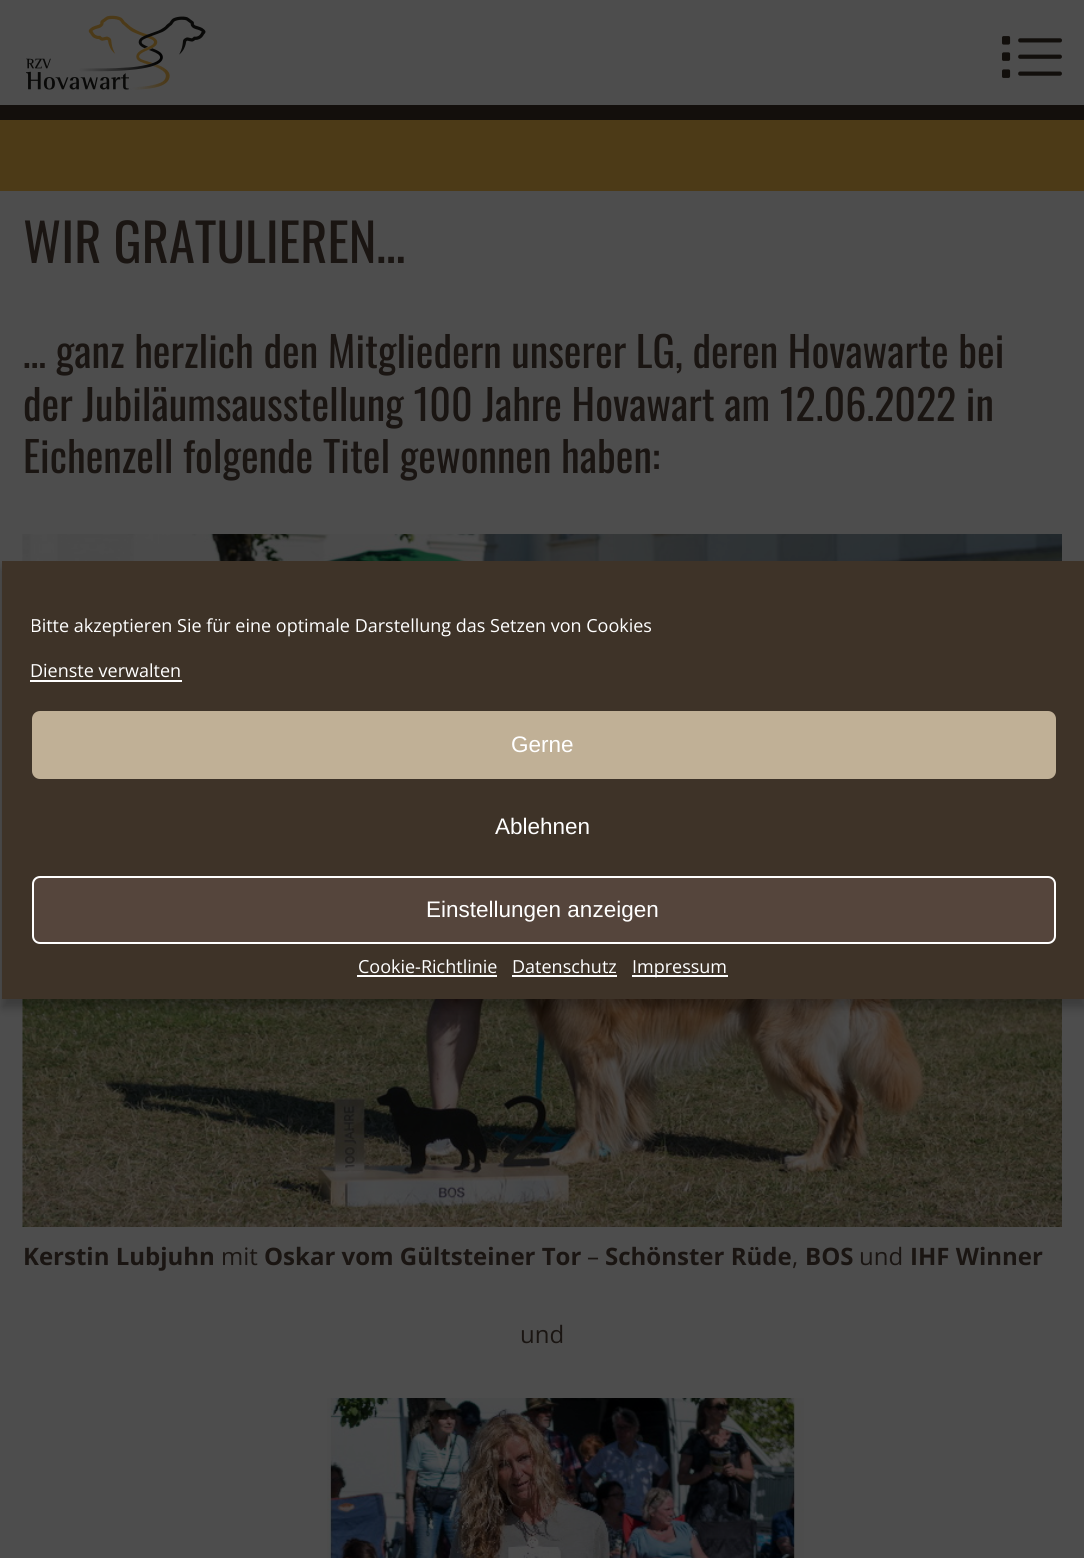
#include <cairo.h>
#include <math.h>
#include <stddef.h>


static void set_color(cairo_t *cr, unsigned color) {
    cairo_set_source_rgb(cr, (color >> 16) / 255.0, (color >> 8 & 255) / 255.0, (color & 255) / 255.0);
}

static void draw_text(cairo_t *cr, double x, double y, const char *s, const char *family, double size, int italic, int bold, unsigned color) {
    cairo_select_font_face(cr, family, italic ? CAIRO_FONT_SLANT_ITALIC : CAIRO_FONT_SLANT_NORMAL,
        bold ? CAIRO_FONT_WEIGHT_BOLD : CAIRO_FONT_WEIGHT_NORMAL);
    cairo_set_font_size(cr, size);
    set_color(cr, color);
    cairo_move_to(cr, x, y);
    cairo_show_text(cr, s);
}

static void fill_rect(cairo_t *cr, double x, double y, double w, double h, unsigned color) {
    set_color(cr, color);
    cairo_rectangle(cr, x, y, w, h);
    cairo_fill(cr);
}

static void rounded_rect(cairo_t *cr, double x, double y, double w, double h, double r) {
    cairo_new_sub_path(cr);
    cairo_arc(cr, x + w - r, y + h - r, r, 0, M_PI / 2);
    cairo_arc(cr, x + r, y + h - r, r, M_PI / 2, M_PI);
    cairo_arc(cr, x + r, y + r, r, M_PI, 1.5 * M_PI);
    cairo_arc(cr, x + w - r, y + r, r, 1.5 * M_PI, 2 * M_PI);
    cairo_close_path(cr);
}

static void draw_shadow(cairo_t *cr, double x, double y, double w, double h, double r, double blur, double alpha) {
    cairo_push_group_with_content(cr, CAIRO_CONTENT_ALPHA);
    cairo_set_operator(cr, CAIRO_OPERATOR_SOURCE);
    for (int i = 15; i >= -15 && fmin(w, h) + blur * i / 3 > 0; i -= 2) {
        double e = blur * i / 6;
        cairo_set_source_rgba(cr, 0, 0, 0, alpha * erfc((i - 1) / 8.5) / 2);
        rounded_rect(cr, x - e, y - e, w + 2 * e, h + 2 * e, fmax(0, fmin(r + e + blur * .6, fmin(w, h) / 2 + e)));
        cairo_fill(cr);
    }
    cairo_pattern_t *soft = cairo_pop_group(cr);
    cairo_mask(cr, soft);
    cairo_pattern_destroy(soft);
}

static void draw_image(cairo_t *cr, const char *path, double x, double y, double w, double h) {
    cairo_surface_t *image = cairo_image_surface_create_from_png(path);
    cairo_save(cr);
    cairo_set_source_surface(cr, image, x, y);
    cairo_rectangle(cr, x, y, w, h);
    cairo_fill(cr);
    cairo_restore(cr);
    cairo_surface_destroy(image);
}

int main(void) {
    cairo_surface_t *surface = cairo_image_surface_create(CAIRO_FORMAT_RGB24, 1084, 1558);
    cairo_t *cr = cairo_create(surface);
    cairo_font_options_t *options = cairo_font_options_create();
    cairo_font_options_set_hint_metrics(options, CAIRO_HINT_METRICS_OFF);
    cairo_font_options_set_hint_style(options, CAIRO_HINT_STYLE_NONE);
    cairo_set_font_options(cr, options);
    cairo_set_miter_limit(cr, 4);
    set_color(cr, 0x4D4D4D);
    cairo_paint(cr);
    draw_image(cr, "assets/img1.png", 26, 15, 180, 75);
    draw_image(cr, "assets/img2.png", 1002, 36, 60, 42);
    fill_rect(cr, 0, 105, 1084, 15, 0x130F0C);
    fill_rect(cr, 0, 120, 1084, 71, 0x4C3A17);
    draw_text(cr, 23, 263, "WIR GRATULIEREN…", "Oswald", 52.5, 0, 0, 0x1A1512);
    draw_text(cr, 23, 368, "… ganz herzlich den Mitgliedern unserer LG, deren Hovawarte bei", "Oswald", 42, 0, 0, 0x1A1512);
    draw_text(cr, 23, 421, "der Jubiläumsausstellung 100 Jahre Hovawart am 12.06.2022 in", "Oswald", 42, 0, 0, 0x1A1512);
    draw_text(cr, 23, 473, "Eichenzell folgende Titel gewonnen haben:", "Oswald", 42, 0, 0, 0x1A1512);
    draw_image(cr, "assets/img3.png", 22, 534, 1040, 693);
    draw_text(cr, 23, 1265, "Kerstin Lubjuhn", "Open Sans", 24, 0, 1, 0x1A1512);
    draw_text(cr, 221, 1265, "mit", "Open Sans", 24, 0, 0, 0x1A1512);
    draw_text(cr, 264, 1265, "Oskar vom Gültsteiner Tor", "Open Sans", 24, 0, 1, 0x1A1512);
    draw_text(cr, 587, 1265, "–", "Open Sans", 24, 0, 0, 0x1A1512);
    draw_text(cr, 605, 1265, "Schönster Rüde", "Open Sans", 24, 0, 1, 0x1A1512);
    draw_text(cr, 805, 1265, "BOS", "Open Sans", 24, 0, 1, 0x1A1512);
    draw_text(cr, 859, 1265, "und", "Open Sans", 24, 0, 0, 0x1A1512);
    draw_text(cr, 910, 1265, "IHF Winner", "Open Sans", 24, 0, 1, 0x1A1512);
    draw_text(cr, 792, 1265, ",", "Open Sans", 24, 0, 0, 0x1A1512);
    draw_text(cr, 520, 1343, "und", "Open Sans", 24, 0, 0, 0x1A1512);
    draw_image(cr, "assets/img4.png", 327, 1398, 477, 160);
    cairo_save(cr);
    cairo_set_fill_rule(cr, CAIRO_FILL_RULE_EVEN_ODD);
    cairo_new_path(cr);
    cairo_move_to(cr, 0, 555);
    cairo_line_to(cr, 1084, 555);
    cairo_line_to(cr, 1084, 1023);
    cairo_line_to(cr, 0, 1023);
    cairo_close_path(cr);
    cairo_move_to(cr, 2, 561);
    cairo_line_to(cr, 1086, 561);
    cairo_line_to(cr, 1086, 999);
    cairo_line_to(cr, 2, 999);
    cairo_close_path(cr);
    cairo_clip(cr);
    set_color(cr, 0x000000);
    draw_shadow(cr, 2, 570, 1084, 438, 0, 4.5, 0.23);
    cairo_restore(cr);
    fill_rect(cr, 2, 561, 1082, 438, 0x3E3328);
    cairo_save(cr);
    cairo_rectangle(cr, 32, 614, 1024, 34);
    cairo_clip(cr);
    draw_text(cr, 30, 632, "Bitte akzeptieren Sie für eine optimale Darstellung das Setzen von Cookies", "Open Sans", 18, 0, 0, 0xFFFFFF);
    cairo_restore(cr);
    draw_text(cr, 30, 677, "Dienste verwalten", "Open Sans", 18, 0, 0, 0xFFFFFF);
    fill_rect(cr, 30, 680, 152, 2, 0xFFFFFF);
    set_color(cr, 0xC0B096);
    rounded_rect(cr, 33, 712, 1022, 66, 7);
    cairo_fill_preserve(cr);
    cairo_stroke(cr);
    draw_text(cr, 511, 752, "Gerne", "Liberation Sans", 22.5, 0, 0, 0xFFFFFF);
    draw_text(cr, 495, 834, "Ablehnen", "Liberation Sans", 22.5, 0, 0, 0xFFFFFF);
    set_color(cr, 0x55453C);
    rounded_rect(cr, 33, 877, 1022, 66, 7);
    cairo_fill_preserve(cr);
    set_color(cr, 0xFFFFFF);
    cairo_stroke(cr);
    draw_text(cr, 426, 917, "Einstellungen anzeigen", "Liberation Sans", 22.5, 0, 0, 0xFFFFFF);
    draw_text(cr, 358, 973, "Cookie-Richtlinie", "Open Sans", 18, 0, 0, 0xFFFFFF);
    fill_rect(cr, 357, 975, 140, 2, 0xFFFFFF);
    draw_text(cr, 512, 973, "Datenschutz", "Open Sans", 18, 0, 0, 0xFFFFFF);
    fill_rect(cr, 512, 975, 105, 2, 0xFFFFFF);
    fill_rect(cr, 632, 975, 96, 2, 0xFFFFFF);
    draw_text(cr, 632, 973, "Impressum", "Open Sans", 18, 0, 0, 0xFFFFFF);
    cairo_surface_write_to_png(surface, "output.png");
    cairo_font_options_destroy(options);
    cairo_destroy(cr);
    cairo_surface_destroy(surface);
    return 0;
}
